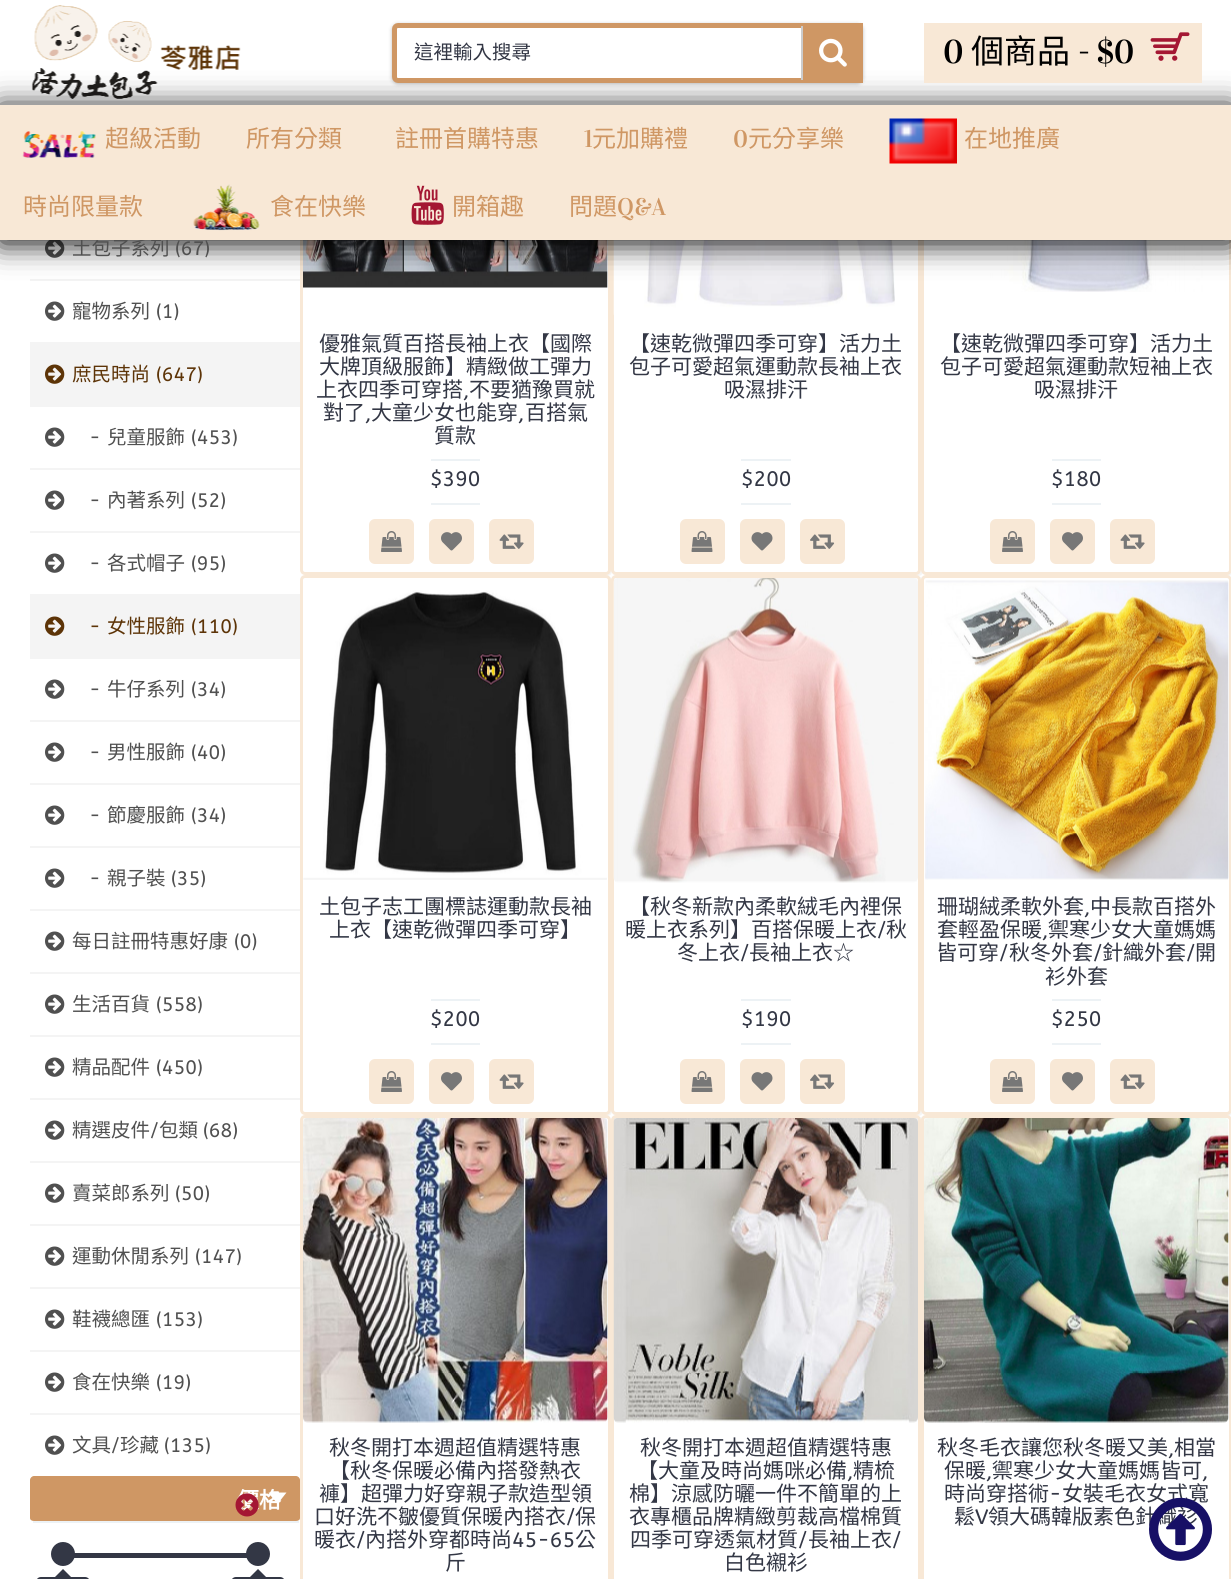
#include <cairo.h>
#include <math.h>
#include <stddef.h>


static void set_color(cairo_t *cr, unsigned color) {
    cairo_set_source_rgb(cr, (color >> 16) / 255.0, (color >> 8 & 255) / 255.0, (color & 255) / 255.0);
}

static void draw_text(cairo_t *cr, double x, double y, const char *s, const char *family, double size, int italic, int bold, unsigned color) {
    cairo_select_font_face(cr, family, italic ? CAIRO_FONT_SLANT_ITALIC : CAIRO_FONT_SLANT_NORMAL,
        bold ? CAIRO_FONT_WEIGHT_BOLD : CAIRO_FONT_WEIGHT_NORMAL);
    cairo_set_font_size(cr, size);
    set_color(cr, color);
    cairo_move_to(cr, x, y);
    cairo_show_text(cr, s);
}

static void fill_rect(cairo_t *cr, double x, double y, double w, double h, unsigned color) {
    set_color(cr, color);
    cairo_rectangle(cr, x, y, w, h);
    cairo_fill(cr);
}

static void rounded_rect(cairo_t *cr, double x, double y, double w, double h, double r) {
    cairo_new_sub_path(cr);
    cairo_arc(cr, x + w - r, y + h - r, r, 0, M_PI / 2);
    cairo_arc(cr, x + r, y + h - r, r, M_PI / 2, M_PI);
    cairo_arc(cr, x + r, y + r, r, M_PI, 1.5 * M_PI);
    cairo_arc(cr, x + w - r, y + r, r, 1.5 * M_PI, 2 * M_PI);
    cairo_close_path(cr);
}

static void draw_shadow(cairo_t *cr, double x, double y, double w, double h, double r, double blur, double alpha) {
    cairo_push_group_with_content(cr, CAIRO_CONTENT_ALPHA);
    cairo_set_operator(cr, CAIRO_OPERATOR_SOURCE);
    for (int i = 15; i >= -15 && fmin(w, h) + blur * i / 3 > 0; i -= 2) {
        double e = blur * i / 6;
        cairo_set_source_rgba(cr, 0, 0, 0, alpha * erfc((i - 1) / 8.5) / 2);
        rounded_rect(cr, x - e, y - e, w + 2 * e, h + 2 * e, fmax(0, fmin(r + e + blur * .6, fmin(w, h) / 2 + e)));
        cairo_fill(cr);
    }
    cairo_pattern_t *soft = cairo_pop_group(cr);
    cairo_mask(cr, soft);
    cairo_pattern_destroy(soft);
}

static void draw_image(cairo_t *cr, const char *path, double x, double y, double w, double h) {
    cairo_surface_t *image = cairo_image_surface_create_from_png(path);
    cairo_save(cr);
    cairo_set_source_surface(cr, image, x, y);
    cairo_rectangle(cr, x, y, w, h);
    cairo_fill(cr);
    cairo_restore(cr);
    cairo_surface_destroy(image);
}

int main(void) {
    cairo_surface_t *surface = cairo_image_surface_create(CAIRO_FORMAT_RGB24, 1231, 1579);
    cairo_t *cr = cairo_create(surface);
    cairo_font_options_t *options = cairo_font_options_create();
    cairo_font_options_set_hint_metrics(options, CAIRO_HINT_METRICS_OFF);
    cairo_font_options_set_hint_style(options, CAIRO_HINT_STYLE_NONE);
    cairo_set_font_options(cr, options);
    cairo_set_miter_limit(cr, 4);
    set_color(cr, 0xFFFFFF);
    cairo_paint(cr);
    set_color(cr, 0xF5F5F5);
    cairo_new_path(cr);
    cairo_move_to(cr, 303, 574);
    cairo_curve_to(cr, 304, 575, 306, 576, 307, 576);
    cairo_line_to(cr, 607, 576);
    cairo_curve_to(cr, 610, 576, 612, 574, 612, 571);
    cairo_line_to(cr, 612, 17);
    cairo_curve_to(cr, 612, 15, 611, 14, 610, 13);
    cairo_line_to(cr, 610, 15);
    cairo_line_to(cr, 610, 570);
    cairo_curve_to(cr, 610, 572, 608, 574, 606, 574);
    cairo_close_path(cr);
    cairo_fill(cr);
    set_color(cr, 0xFFFFFF);
    rounded_rect(cr, 301.5, 12.5, 308, 561, 3.5);
    cairo_fill_preserve(cr);
    set_color(cr, 0xF8E8D6);
    cairo_set_line_width(cr, 3);
    cairo_stroke(cr);
    set_color(cr, 0xF5F5F5);
    cairo_new_path(cr);
    cairo_move_to(cr, 613, 574);
    cairo_curve_to(cr, 614, 575, 615, 576, 617, 576);
    cairo_line_to(cr, 918, 576);
    cairo_curve_to(cr, 921, 576, 923, 574, 923, 571);
    cairo_line_to(cr, 923, 17);
    cairo_curve_to(cr, 923, 15, 922, 13, 920, 13);
    cairo_line_to(cr, 921, 15);
    cairo_line_to(cr, 921, 570);
    cairo_curve_to(cr, 921, 572, 919, 574, 916, 574);
    cairo_line_to(cr, 615, 574);
    cairo_close_path(cr);
    cairo_fill(cr);
    set_color(cr, 0xFFFFFF);
    rounded_rect(cr, 612.5, 12.5, 307, 561, 3.5);
    cairo_fill_preserve(cr);
    set_color(cr, 0xF8E8D6);
    cairo_stroke(cr);
    set_color(cr, 0xF5F5F5);
    cairo_new_path(cr);
    cairo_move_to(cr, 924, 574);
    cairo_curve_to(cr, 925, 575, 927, 576, 928, 576);
    cairo_line_to(cr, 1228, 576);
    cairo_curve_to(cr, 1231, 576, 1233, 574, 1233, 571);
    cairo_line_to(cr, 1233, 17);
    cairo_curve_to(cr, 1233, 15, 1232, 14, 1231, 13);
    cairo_line_to(cr, 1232, 15);
    cairo_line_to(cr, 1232, 570);
    cairo_curve_to(cr, 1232, 572, 1229, 574, 1227, 574);
    cairo_close_path(cr);
    cairo_fill(cr);
    set_color(cr, 0xFFFFFF);
    rounded_rect(cr, 922.5, 12.5, 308, 561, 3.5);
    cairo_fill_preserve(cr);
    set_color(cr, 0xF8E8D6);
    cairo_stroke(cr);
    fill_rect(cr, 300, 11, 931, 94, 0xFFFFFF);
    draw_image(cr, "assets/img1.png", 31, 5, 210, 94);
    set_color(cr, 0x000000);
    draw_shadow(cr, 392, 24, 471, 60, 6, 2, 0.25);
    fill_rect(cr, 30, 279, 270, 2, 0xF4F4F4);
    draw_image(cr, "assets/img8.png", 45, 240, 20, 18);
    draw_image(cr, "assets/img12.png", 303, 240, 305, 48);
    draw_image(cr, "assets/img16.png", 613, 240, 282, 75);
    draw_image(cr, "assets/img20.png", 985, 240, 219, 52);
    set_color(cr, 0x000000);
    draw_shadow(cr, 0, 108, 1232, 135, 0, 15, 1);
    set_color(cr, 0xFFFFFF);
    rounded_rect(cr, 394.5, 25.5, 466, 55, 3.5);
    cairo_fill_preserve(cr);
    set_color(cr, 0xCF9764);
    cairo_set_line_width(cr, 5);
    cairo_stroke(cr);
    draw_text(cr, 414, 59, "這裡輸入搜尋", "Noto Sans CJK TC", 19.5, 0, 0, 0x333745);
    set_color(cr, 0xCF9764);
    cairo_new_path(cr);
    cairo_move_to(cr, 807, 23);
    cairo_line_to(cr, 863, 23);
    cairo_line_to(cr, 863, 83);
    cairo_line_to(cr, 807, 83);
    cairo_curve_to(cr, 803.5, 83, 801, 80.5, 801, 77);
    cairo_line_to(cr, 801, 29);
    cairo_curve_to(cr, 801, 25.5, 803.5, 23, 807, 23);
    cairo_close_path(cr);
    cairo_fill(cr);
    fill_rect(cr, 801, 26, 2, 54, 0xCCCCCC);
    draw_image(cr, "assets/img2.png", 819, 38, 28, 29);
    fill_rect(cr, 924, 23, 278, 60, 0xF8E8D6);
    draw_text(cr, 943, 63, "0", "Vidaloka", 33, 0, 0, 0x000000);
    draw_text(cr, 971, 63, "個商品", "Noto Sans CJK TC", 33, 0, 0, 0x000000);
    draw_text(cr, 1078, 63, "- $0", "Vidaloka", 33, 0, 0, 0x000000);
    draw_image(cr, "assets/img3.png", 1150, 32, 40, 29);
    draw_text(cr, 72, 255, "土包子系列", "Noto Sans CJK TC", 19.5, 0, 0, 0x505050);
    fill_rect(cr, 0, 105, 1231, 135, 0xF8E8D6);
    draw_image(cr, "assets/img4.png", 22, 131, 74, 27);
    draw_text(cr, 105, 147, "超級活動", "Noto Sans CJK TC", 24, 0, 0, 0xCF9764);
    draw_text(cr, 246, 147, "所有分類", "Noto Sans CJK TC", 24, 0, 0, 0xCF9764);
    draw_text(cr, 395, 147, "註冊首購特惠", "Noto Sans CJK TC", 24, 0, 0, 0xCF9764);
    draw_text(cr, 584, 147, "1", "Vidaloka", 24, 0, 0, 0xCF9764);
    draw_text(cr, 592, 147, "元加購禮", "Noto Sans CJK TC", 24, 0, 0, 0xCF9764);
    draw_text(cr, 733, 147, "0", "Vidaloka", 24, 0, 0, 0xCF9764);
    draw_text(cr, 748, 147, "元分享樂", "Noto Sans CJK TC", 24, 0, 0, 0xCF9764);
    draw_image(cr, "assets/img5.png", 889, 118, 68, 46);
    draw_text(cr, 964, 147, "在地推廣", "Noto Sans CJK TC", 24, 0, 0, 0xCF9764);
    draw_text(cr, 23, 215, "時尚限量款", "Noto Sans CJK TC", 24, 0, 0, 0xCF9764);
    draw_image(cr, "assets/img6.png", 193, 184, 67, 47);
    draw_text(cr, 270, 215, "食在快樂", "Noto Sans CJK TC", 24, 0, 0, 0xCF9764);
    draw_image(cr, "assets/img7.png", 411, 185, 33, 40);
    draw_text(cr, 452, 215, "開箱趣", "Noto Sans CJK TC", 24, 0, 0, 0xCF9764);
    draw_text(cr, 569, 215, "問題", "Noto Sans CJK TC", 24, 0, 0, 0xCF9764);
    draw_text(cr, 617, 215, "Q&A", "Vidaloka", 24, 0, 0, 0xCF9764);
    draw_text(cr, 175, 255, "(67)", "ABeeZee", 19.5, 0, 0, 0x505050);
    fill_rect(cr, 30, 342, 270, 65, 0xF4F4F4);
    draw_image(cr, "assets/img9.png", 45, 301, 20, 20);
    draw_text(cr, 72, 318, "寵物系列", "Noto Sans CJK TC", 19.5, 0, 0, 0x505050);
    draw_text(cr, 156, 318, "(1)", "ABeeZee", 19.5, 0, 0, 0x505050);
    draw_image(cr, "assets/img10.png", 45, 364, 20, 20);
    draw_text(cr, 72, 381, "庶民時尚", "Noto Sans CJK TC", 19.5, 0, 0, 0x5D3407);
    draw_text(cr, 156, 381, "(647)", "ABeeZee", 19.5, 0, 0, 0x5D3407);
    fill_rect(cr, 30, 468, 270, 2, 0xF4F4F4);
    draw_image(cr, "assets/img9.png", 45, 427, 20, 20);
    draw_text(cr, 89, 444, "-", "ABeeZee", 19.5, 0, 0, 0x505050);
    draw_text(cr, 107, 444, "兒童服飾", "Noto Sans CJK TC", 19.5, 0, 0, 0x505050);
    draw_text(cr, 191, 444, "(453)", "ABeeZee", 19.5, 0, 0, 0x505050);
    fill_rect(cr, 30, 531, 270, 2, 0xF4F4F4);
    draw_image(cr, "assets/img9.png", 45, 490, 20, 20);
    draw_text(cr, 89, 507, "-", "ABeeZee", 19.5, 0, 0, 0x505050);
    draw_text(cr, 107, 507, "內著系列", "Noto Sans CJK TC", 19.5, 0, 0, 0x505050);
    draw_text(cr, 191, 507, "(52)", "ABeeZee", 19.5, 0, 0, 0x505050);
    fill_rect(cr, 30, 594, 270, 65, 0xF4F4F4);
    draw_image(cr, "assets/img9.png", 45, 553, 20, 20);
    draw_text(cr, 89, 570, "-", "ABeeZee", 19.5, 0, 0, 0x505050);
    draw_text(cr, 107, 570, "各式帽子", "Noto Sans CJK TC", 19.5, 0, 0, 0x505050);
    draw_text(cr, 191, 570, "(95)", "ABeeZee", 19.5, 0, 0, 0x505050);
    draw_image(cr, "assets/img10.png", 45, 616, 20, 20);
    draw_text(cr, 89, 633, "-", "ABeeZee", 19.5, 0, 0, 0x5D3407);
    draw_text(cr, 107, 633, "女性服飾", "Noto Sans CJK TC", 19.5, 0, 0, 0x5D3407);
    draw_text(cr, 191, 633, "(110)", "ABeeZee", 19.5, 0, 0, 0x5D3407);
    fill_rect(cr, 30, 720, 270, 2, 0xF4F4F4);
    draw_image(cr, "assets/img9.png", 45, 679, 20, 20);
    draw_text(cr, 89, 696, "-", "ABeeZee", 19.5, 0, 0, 0x505050);
    draw_text(cr, 107, 696, "牛仔系列", "Noto Sans CJK TC", 19.5, 0, 0, 0x505050);
    draw_text(cr, 191, 696, "(34)", "ABeeZee", 19.5, 0, 0, 0x505050);
    fill_rect(cr, 30, 783, 270, 2, 0xF4F4F4);
    draw_image(cr, "assets/img9.png", 45, 742, 20, 20);
    draw_text(cr, 89, 759, "-", "ABeeZee", 19.5, 0, 0, 0x505050);
    draw_text(cr, 107, 759, "男性服飾", "Noto Sans CJK TC", 19.5, 0, 0, 0x505050);
    draw_text(cr, 191, 759, "(40)", "ABeeZee", 19.5, 0, 0, 0x505050);
    fill_rect(cr, 30, 846, 270, 2, 0xF4F4F4);
    draw_image(cr, "assets/img9.png", 45, 805, 20, 20);
    draw_text(cr, 89, 822, "-", "ABeeZee", 19.5, 0, 0, 0x505050);
    draw_text(cr, 107, 822, "節慶服飾", "Noto Sans CJK TC", 19.5, 0, 0, 0x505050);
    draw_text(cr, 191, 822, "(34)", "ABeeZee", 19.5, 0, 0, 0x505050);
    fill_rect(cr, 30, 909, 270, 2, 0xF4F4F4);
    draw_image(cr, "assets/img9.png", 45, 868, 20, 20);
    draw_text(cr, 89, 885, "-", "ABeeZee", 19.5, 0, 0, 0x505050);
    draw_text(cr, 107, 885, "親子裝", "Noto Sans CJK TC", 19.5, 0, 0, 0x505050);
    draw_text(cr, 171, 885, "(35)", "ABeeZee", 19.5, 0, 0, 0x505050);
    fill_rect(cr, 30, 972, 270, 2, 0xF4F4F4);
    draw_image(cr, "assets/img9.png", 45, 931, 20, 20);
    draw_text(cr, 72, 948, "每日註冊特惠好康", "Noto Sans CJK TC", 19.5, 0, 0, 0x505050);
    draw_text(cr, 234, 948, "(0)", "ABeeZee", 19.5, 0, 0, 0x505050);
    fill_rect(cr, 30, 1035, 270, 2, 0xF4F4F4);
    draw_image(cr, "assets/img9.png", 45, 994, 20, 20);
    draw_text(cr, 72, 1011, "生活百貨", "Noto Sans CJK TC", 19.5, 0, 0, 0x505050);
    draw_text(cr, 156, 1011, "(558)", "ABeeZee", 19.5, 0, 0, 0x505050);
    fill_rect(cr, 30, 1098, 270, 2, 0xF4F4F4);
    draw_image(cr, "assets/img9.png", 45, 1057, 20, 20);
    draw_text(cr, 72, 1074, "精品配件", "Noto Sans CJK TC", 19.5, 0, 0, 0x505050);
    draw_text(cr, 156, 1074, "(450)", "ABeeZee", 19.5, 0, 0, 0x505050);
    fill_rect(cr, 30, 1161, 270, 2, 0xF4F4F4);
    draw_image(cr, "assets/img9.png", 45, 1120, 20, 20);
    draw_text(cr, 72, 1137, "精選皮件", "Noto Sans CJK TC", 19.5, 0, 0, 0x505050);
    draw_text(cr, 150, 1137, "/", "ABeeZee", 19.5, 0, 0, 0x505050);
    draw_text(cr, 159, 1137, "包類", "Noto Sans CJK TC", 19.5, 0, 0, 0x505050);
    draw_text(cr, 203, 1137, "(68)", "ABeeZee", 19.5, 0, 0, 0x505050);
    fill_rect(cr, 30, 1224, 270, 2, 0xF4F4F4);
    draw_image(cr, "assets/img9.png", 45, 1183, 20, 20);
    draw_text(cr, 72, 1200, "賣菜郎系列", "Noto Sans CJK TC", 19.5, 0, 0, 0x505050);
    draw_text(cr, 175, 1200, "(50)", "ABeeZee", 19.5, 0, 0, 0x505050);
    fill_rect(cr, 30, 1287, 270, 2, 0xF4F4F4);
    draw_image(cr, "assets/img9.png", 45, 1246, 20, 20);
    draw_text(cr, 72, 1263, "運動休閒系列", "Noto Sans CJK TC", 19.5, 0, 0, 0x505050);
    draw_text(cr, 195, 1263, "(147)", "ABeeZee", 19.5, 0, 0, 0x505050);
    fill_rect(cr, 30, 1350, 270, 2, 0xF4F4F4);
    draw_image(cr, "assets/img9.png", 45, 1309, 20, 20);
    draw_text(cr, 72, 1326, "鞋襪總匯", "Noto Sans CJK TC", 19.5, 0, 0, 0x505050);
    draw_text(cr, 156, 1326, "(153)", "ABeeZee", 19.5, 0, 0, 0x505050);
    fill_rect(cr, 30, 1413, 270, 2, 0xF4F4F4);
    draw_image(cr, "assets/img9.png", 45, 1372, 20, 20);
    draw_text(cr, 72, 1389, "食在快樂", "Noto Sans CJK TC", 19.5, 0, 0, 0x505050);
    draw_text(cr, 156, 1389, "(19)", "ABeeZee", 19.5, 0, 0, 0x505050);
    draw_image(cr, "assets/img9.png", 45, 1435, 20, 20);
    draw_text(cr, 72, 1452, "文具", "Noto Sans CJK TC", 19.5, 0, 0, 0x505050);
    draw_text(cr, 111, 1452, "/", "ABeeZee", 19.5, 0, 0, 0x505050);
    draw_text(cr, 120, 1452, "珍藏", "Noto Sans CJK TC", 19.5, 0, 0, 0x505050);
    draw_text(cr, 164, 1452, "(135)", "ABeeZee", 19.5, 0, 0, 0x505050);
    set_color(cr, 0xCF9764);
    cairo_new_path(cr);
    cairo_move_to(cr, 34, 1476);
    cairo_line_to(cr, 296, 1476);
    cairo_curve_to(cr, 298, 1476, 300, 1478, 300, 1480);
    cairo_line_to(cr, 300, 1518);
    cairo_curve_to(cr, 300, 1520, 298, 1521, 296, 1521);
    cairo_line_to(cr, 34, 1521);
    cairo_curve_to(cr, 32, 1521, 30, 1520, 30, 1518);
    cairo_line_to(cr, 30, 1480);
    cairo_curve_to(cr, 30, 1478, 32, 1476, 34, 1476);
    cairo_close_path(cr);
    cairo_fill(cr);
    fill_rect(cr, 33, 1521, 266, 2, 0xEDF2F5);
    draw_text(cr, 237, 1508, "價格", "Noto Sans CJK TC", 22, 0, 1, 0xFFFFFF);
    cairo_new_path(cr);
    cairo_move_to(cr, 286.5, 1492.5);
    cairo_line_to(cr, 268.5, 1492.5);
    cairo_line_to(cr, 277.5, 1504);
    cairo_close_path(cr);
    cairo_fill(cr);
    fill_rect(cr, 68, 1553, 179, 5, 0x333745);
    cairo_arc(cr, 63, 1554, 12, 0, 2 * M_PI);
    cairo_fill(cr);
    rounded_rect(cr, 36, 1577, 54, 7, 5);
    cairo_fill(cr);
    cairo_new_path(cr);
    cairo_move_to(cr, 73.5, 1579.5);
    cairo_line_to(cr, 52.5, 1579.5);
    cairo_line_to(cr, 63, 1569);
    cairo_close_path(cr);
    cairo_fill(cr);
    cairo_arc(cr, 258, 1554, 12, 0, 2 * M_PI);
    cairo_fill(cr);
    rounded_rect(cr, 231, 1577, 54, 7, 5);
    cairo_fill(cr);
    cairo_new_path(cr);
    cairo_move_to(cr, 268.5, 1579.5);
    cairo_line_to(cr, 247.5, 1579.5);
    cairo_line_to(cr, 258, 1569);
    cairo_close_path(cr);
    cairo_fill(cr);
    draw_image(cr, "assets/img11.png", 235, 1493, 24, 24);
    draw_text(cr, 319, 351, "優雅氣質百搭長袖上衣【國際", "Noto Sans CJK TC", 21, 0, 0, 0x333745);
    draw_text(cr, 319, 374, "大牌頂級服飾】精緻做工彈力", "Noto Sans CJK TC", 21, 0, 0, 0x333745);
    draw_text(cr, 316, 397, "上衣四季可穿搭", "Noto Sans CJK TC", 21, 0, 0, 0x333745);
    draw_text(cr, 463, 397, ",", "ABeeZee", 21, 0, 0, 0x333745);
    draw_text(cr, 469, 397, "不要猶豫買就", "Noto Sans CJK TC", 21, 0, 0, 0x333745);
    draw_text(cr, 323, 420, "對了", "Noto Sans CJK TC", 21, 0, 0, 0x333745);
    draw_text(cr, 365, 420, ",", "ABeeZee", 21, 0, 0, 0x333745);
    draw_text(cr, 371, 420, "大童少女也能穿", "Noto Sans CJK TC", 21, 0, 0, 0x333745);
    draw_text(cr, 518, 420, ",", "ABeeZee", 21, 0, 0, 0x333745);
    draw_text(cr, 525, 420, "百搭氣", "Noto Sans CJK TC", 21, 0, 0, 0x333745);
    draw_text(cr, 434, 443, "質款", "Noto Sans CJK TC", 21, 0, 0, 0x333745);
    fill_rect(cr, 431, 459, 49, 2, 0xEDF2F5);
    fill_rect(cr, 431, 503, 49, 2, 0xEDF2F5);
    draw_text(cr, 430, 486, "$390", "ABeeZee", 21, 0, 0, 0x333745);
    set_color(cr, 0xF8E8D6);
    rounded_rect(cr, 369, 519, 45, 45, 6);
    cairo_fill(cr);
    draw_image(cr, "assets/img13.png", 381, 531, 21, 21);
    rounded_rect(cr, 429, 519, 45, 45, 6);
    cairo_fill(cr);
    draw_image(cr, "assets/img14.png", 441, 532, 21, 19);
    rounded_rect(cr, 489, 519, 45, 45, 6);
    cairo_fill(cr);
    draw_image(cr, "assets/img15.png", 499, 534, 25, 15);
    draw_text(cr, 629, 351, "【速乾微彈四季可穿】活力土", "Noto Sans CJK TC", 21, 0, 0, 0x333745);
    draw_text(cr, 629, 374, "包子可愛超氣運動款長袖上衣", "Noto Sans CJK TC", 21, 0, 0, 0x333745);
    draw_text(cr, 724, 397, "吸濕排汗", "Noto Sans CJK TC", 21, 0, 0, 0x333745);
    fill_rect(cr, 741, 459, 50, 2, 0xEDF2F5);
    fill_rect(cr, 741, 503, 50, 2, 0xEDF2F5);
    draw_text(cr, 741, 486, "$200", "ABeeZee", 21, 0, 0, 0x333745);
    set_color(cr, 0xF8E8D6);
    rounded_rect(cr, 680, 519, 45, 45, 6);
    cairo_fill(cr);
    draw_image(cr, "assets/img17.png", 691, 531, 22, 21);
    rounded_rect(cr, 740, 519, 45, 45, 6);
    cairo_fill(cr);
    draw_image(cr, "assets/img18.png", 751, 532, 22, 19);
    rounded_rect(cr, 800, 519, 45, 45, 6);
    cairo_fill(cr);
    draw_image(cr, "assets/img19.png", 810, 534, 25, 15);
    draw_text(cr, 940, 351, "【速乾微彈四季可穿】活力土", "Noto Sans CJK TC", 21, 0, 0, 0x333745);
    draw_text(cr, 940, 374, "包子可愛超氣運動款短袖上衣", "Noto Sans CJK TC", 21, 0, 0, 0x333745);
    draw_text(cr, 1034, 397, "吸濕排汗", "Noto Sans CJK TC", 21, 0, 0, 0x333745);
    fill_rect(cr, 1052, 459, 49, 2, 0xEDF2F5);
    fill_rect(cr, 1052, 503, 49, 2, 0xEDF2F5);
    draw_text(cr, 1051, 486, "$180", "ABeeZee", 21, 0, 0, 0x333745);
    set_color(cr, 0xF8E8D6);
    rounded_rect(cr, 990, 519, 45, 45, 6);
    cairo_fill(cr);
    draw_image(cr, "assets/img13.png", 1002, 531, 21, 21);
    rounded_rect(cr, 1050, 519, 45, 45, 6);
    cairo_fill(cr);
    draw_image(cr, "assets/img14.png", 1062, 532, 21, 19);
    rounded_rect(cr, 1110, 519, 45, 45, 6);
    cairo_fill(cr);
    draw_image(cr, "assets/img15.png", 1120, 534, 25, 15);
    set_color(cr, 0xF5F5F5);
    cairo_new_path(cr);
    cairo_move_to(cr, 303, 1114);
    cairo_curve_to(cr, 304, 1115, 306, 1116, 307, 1116);
    cairo_line_to(cr, 607, 1116);
    cairo_curve_to(cr, 610, 1116, 612, 1114, 612, 1111);
    cairo_line_to(cr, 612, 581);
    cairo_curve_to(cr, 612, 579, 611, 578, 610, 577);
    cairo_line_to(cr, 610, 579);
    cairo_line_to(cr, 610, 1110);
    cairo_curve_to(cr, 610, 1112, 608, 1114, 606, 1114);
    cairo_close_path(cr);
    cairo_fill(cr);
    set_color(cr, 0xFFFFFF);
    rounded_rect(cr, 301.5, 576.5, 308, 537, 3.5);
    cairo_fill_preserve(cr);
    set_color(cr, 0xF8E8D6);
    cairo_set_line_width(cr, 3);
    cairo_stroke(cr);
    draw_image(cr, "assets/img21.png", 303, 590, 304, 290);
    draw_text(cr, 319, 914, "土包子志工團標誌運動款長袖", "Noto Sans CJK TC", 21, 0, 0, 0x333745);
    draw_text(cr, 329, 937, "上衣【速乾微彈四季可穿】", "Noto Sans CJK TC", 21, 0, 0, 0x333745);
    fill_rect(cr, 431, 999, 49, 2, 0xEDF2F5);
    fill_rect(cr, 431, 1043, 49, 2, 0xEDF2F5);
    draw_text(cr, 430, 1026, "$200", "ABeeZee", 21, 0, 0, 0x333745);
    set_color(cr, 0xF8E8D6);
    rounded_rect(cr, 369, 1059, 45, 45, 6);
    cairo_fill(cr);
    draw_image(cr, "assets/img13.png", 381, 1071, 21, 21);
    rounded_rect(cr, 429, 1059, 45, 45, 6);
    cairo_fill(cr);
    draw_image(cr, "assets/img14.png", 441, 1072, 21, 19);
    rounded_rect(cr, 489, 1059, 45, 45, 6);
    cairo_fill(cr);
    draw_image(cr, "assets/img15.png", 499, 1074, 25, 15);
    set_color(cr, 0xF5F5F5);
    cairo_new_path(cr);
    cairo_move_to(cr, 613, 1114);
    cairo_curve_to(cr, 614, 1115, 615, 1116, 617, 1116);
    cairo_line_to(cr, 918, 1116);
    cairo_curve_to(cr, 921, 1116, 923, 1114, 923, 1111);
    cairo_line_to(cr, 923, 581);
    cairo_curve_to(cr, 923, 579, 922, 577, 920, 577);
    cairo_line_to(cr, 921, 579);
    cairo_line_to(cr, 921, 1110);
    cairo_curve_to(cr, 921, 1112, 919, 1114, 916, 1114);
    cairo_line_to(cr, 615, 1114);
    cairo_close_path(cr);
    cairo_fill(cr);
    set_color(cr, 0xFFFFFF);
    rounded_rect(cr, 612.5, 576.5, 307, 537, 3.5);
    cairo_fill_preserve(cr);
    set_color(cr, 0xF8E8D6);
    cairo_stroke(cr);
    draw_image(cr, "assets/img22.png", 613, 578, 305, 305);
    draw_text(cr, 629, 914, "【秋冬新款內柔軟絨毛內裡保", "Noto Sans CJK TC", 21, 0, 0, 0x333745);
    draw_text(cr, 625, 937, "暖上衣系列】百搭保暖上衣", "Noto Sans CJK TC", 21, 0, 0, 0x333745);
    draw_text(cr, 877, 937, "/", "ABeeZee", 21, 0, 0, 0x333745);
    draw_text(cr, 886, 937, "秋", "Noto Sans CJK TC", 21, 0, 0, 0x333745);
    draw_text(cr, 677, 960, "冬上衣", "Noto Sans CJK TC", 21, 0, 0, 0x333745);
    draw_text(cr, 740, 960, "/", "ABeeZee", 21, 0, 0, 0x333745);
    draw_text(cr, 749, 960, "長袖上衣☆", "Noto Sans CJK TC", 21, 0, 0, 0x333745);
    fill_rect(cr, 741, 999, 50, 2, 0xEDF2F5);
    fill_rect(cr, 741, 1043, 50, 2, 0xEDF2F5);
    draw_text(cr, 741, 1026, "$190", "ABeeZee", 21, 0, 0, 0x333745);
    set_color(cr, 0xF8E8D6);
    rounded_rect(cr, 680, 1059, 45, 45, 6);
    cairo_fill(cr);
    draw_image(cr, "assets/img17.png", 691, 1071, 22, 21);
    rounded_rect(cr, 740, 1059, 45, 45, 6);
    cairo_fill(cr);
    draw_image(cr, "assets/img18.png", 751, 1072, 22, 19);
    rounded_rect(cr, 800, 1059, 45, 45, 6);
    cairo_fill(cr);
    draw_image(cr, "assets/img19.png", 810, 1074, 25, 15);
    set_color(cr, 0xF5F5F5);
    cairo_new_path(cr);
    cairo_move_to(cr, 924, 1114);
    cairo_curve_to(cr, 925, 1115, 927, 1116, 928, 1116);
    cairo_line_to(cr, 1228, 1116);
    cairo_curve_to(cr, 1231, 1116, 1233, 1114, 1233, 1111);
    cairo_line_to(cr, 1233, 581);
    cairo_curve_to(cr, 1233, 579, 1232, 578, 1231, 577);
    cairo_line_to(cr, 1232, 579);
    cairo_line_to(cr, 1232, 1110);
    cairo_curve_to(cr, 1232, 1112, 1229, 1114, 1227, 1114);
    cairo_close_path(cr);
    cairo_fill(cr);
    set_color(cr, 0xFFFFFF);
    rounded_rect(cr, 922.5, 576.5, 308, 537, 3.5);
    cairo_fill_preserve(cr);
    set_color(cr, 0xF8E8D6);
    cairo_stroke(cr);
    draw_image(cr, "assets/img23.png", 925, 580, 304, 300);
    draw_text(cr, 937, 914, "珊瑚絨柔軟外套", "Noto Sans CJK TC", 21, 0, 0, 0x333745);
    draw_text(cr, 1084, 914, ",", "ABeeZee", 21, 0, 0, 0x333745);
    draw_text(cr, 1090, 914, "中長款百搭外", "Noto Sans CJK TC", 21, 0, 0, 0x333745);
    draw_text(cr, 937, 937, "套輕盈保暖", "Noto Sans CJK TC", 21, 0, 0, 0x333745);
    draw_text(cr, 1042, 937, ",", "ABeeZee", 21, 0, 0, 0x333745);
    draw_text(cr, 1048, 937, "禦寒少女大童媽媽", "Noto Sans CJK TC", 21, 0, 0, 0x333745);
    draw_text(cr, 936, 960, "皆可穿", "Noto Sans CJK TC", 21, 0, 0, 0x333745);
    draw_text(cr, 999, 960, "/", "ABeeZee", 21, 0, 0, 0x333745);
    draw_text(cr, 1009, 960, "秋冬外套", "Noto Sans CJK TC", 21, 0, 0, 0x333745);
    draw_text(cr, 1093, 960, "/", "ABeeZee", 21, 0, 0, 0x333745);
    draw_text(cr, 1102, 960, "針織外套", "Noto Sans CJK TC", 21, 0, 0, 0x333745);
    draw_text(cr, 1186, 960, "/", "ABeeZee", 21, 0, 0, 0x333745);
    draw_text(cr, 1195, 960, "開", "Noto Sans CJK TC", 21, 0, 0, 0x333745);
    draw_text(cr, 1045, 984, "衫外套", "Noto Sans CJK TC", 21, 0, 0, 0x333745);
    fill_rect(cr, 1052, 999, 49, 2, 0xEDF2F5);
    fill_rect(cr, 1052, 1043, 49, 2, 0xEDF2F5);
    draw_text(cr, 1051, 1026, "$250", "ABeeZee", 21, 0, 0, 0x333745);
    set_color(cr, 0xF8E8D6);
    rounded_rect(cr, 990, 1059, 45, 45, 6);
    cairo_fill(cr);
    draw_image(cr, "assets/img13.png", 1002, 1071, 21, 21);
    rounded_rect(cr, 1050, 1059, 45, 45, 6);
    cairo_fill(cr);
    draw_image(cr, "assets/img14.png", 1062, 1072, 21, 19);
    rounded_rect(cr, 1110, 1059, 45, 45, 6);
    cairo_fill(cr);
    draw_image(cr, "assets/img15.png", 1120, 1074, 25, 15);
    set_color(cr, 0xFFFFFF);
    rounded_rect(cr, 301.5, 1116.5, 308, 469, 3.5);
    cairo_fill_preserve(cr);
    set_color(cr, 0xF8E8D6);
    cairo_stroke(cr);
    draw_image(cr, "assets/img24.png", 303, 1118, 305, 305);
    draw_text(cr, 329, 1455, "秋冬開打本週超值精選特惠", "Noto Sans CJK TC", 21, 0, 0, 0x333745);
    draw_text(cr, 329, 1478, "【秋冬保暖必備內搭發熱衣", "Noto Sans CJK TC", 21, 0, 0, 0x333745);
    draw_text(cr, 319, 1501, "褲】超彈力好穿親子款造型領", "Noto Sans CJK TC", 21, 0, 0, 0x333745);
    draw_text(cr, 314, 1524, "口好洗不皺優質保暖內搭衣", "Noto Sans CJK TC", 21, 0, 0, 0x333745);
    draw_text(cr, 566, 1524, "/", "ABeeZee", 21, 0, 0, 0x333745);
    draw_text(cr, 575, 1524, "保", "Noto Sans CJK TC", 21, 0, 0, 0x333745);
    draw_text(cr, 314, 1547, "暖衣", "Noto Sans CJK TC", 21, 0, 0, 0x333745);
    draw_text(cr, 356, 1547, "/", "ABeeZee", 21, 0, 0, 0x333745);
    draw_text(cr, 365, 1547, "內搭外穿都時尚", "Noto Sans CJK TC", 21, 0, 0, 0x333745);
    draw_text(cr, 512, 1547, "45-65", "ABeeZee", 21, 0, 0, 0x333745);
    draw_text(cr, 575, 1547, "公", "Noto Sans CJK TC", 21, 0, 0, 0x333745);
    draw_text(cr, 445, 1570, "斤", "Noto Sans CJK TC", 21, 0, 0, 0x333745);
    set_color(cr, 0xF5F5F5);
    cairo_new_path(cr);
    cairo_move_to(cr, 613, 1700);
    cairo_curve_to(cr, 613, 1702, 615, 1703, 617, 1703);
    cairo_line_to(cr, 918, 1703);
    cairo_curve_to(cr, 921, 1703, 923, 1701, 923, 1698);
    cairo_line_to(cr, 923, 1121);
    cairo_curve_to(cr, 923, 1119, 922, 1117, 920, 1117);
    cairo_line_to(cr, 921, 1119);
    cairo_line_to(cr, 921, 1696);
    cairo_curve_to(cr, 921, 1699, 919, 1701, 916, 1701);
    cairo_line_to(cr, 615, 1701);
    cairo_close_path(cr);
    cairo_fill(cr);
    set_color(cr, 0xFFFFFF);
    rounded_rect(cr, 612.5, 1116.5, 307, 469, 3.5);
    cairo_fill_preserve(cr);
    set_color(cr, 0xF8E8D6);
    cairo_stroke(cr);
    draw_image(cr, "assets/img25.png", 613, 1118, 305, 305);
    draw_text(cr, 640, 1455, "秋冬開打本週超值精選特惠", "Noto Sans CJK TC", 21, 0, 0, 0x333745);
    draw_text(cr, 637, 1478, "【大童及時尚媽咪必備", "Noto Sans CJK TC", 21, 0, 0, 0x333745);
    draw_text(cr, 847, 1478, ",", "ABeeZee", 21, 0, 0, 0x333745);
    draw_text(cr, 853, 1478, "精梳", "Noto Sans CJK TC", 21, 0, 0, 0x333745);
    draw_text(cr, 629, 1501, "棉】涼感防曬一件不簡單的上", "Noto Sans CJK TC", 21, 0, 0, 0x333745);
    draw_text(cr, 629, 1524, "衣專櫃品牌精緻剪裁高檔棉質", "Noto Sans CJK TC", 21, 0, 0, 0x333745);
    draw_text(cr, 630, 1547, "四季可穿透氣材質", "Noto Sans CJK TC", 21, 0, 0, 0x333745);
    draw_text(cr, 798, 1547, "/", "ABeeZee", 21, 0, 0, 0x333745);
    draw_text(cr, 808, 1547, "長袖上衣", "Noto Sans CJK TC", 21, 0, 0, 0x333745);
    draw_text(cr, 892, 1547, "/", "ABeeZee", 21, 0, 0, 0x333745);
    draw_text(cr, 724, 1570, "白色襯衫", "Noto Sans CJK TC", 21, 0, 0, 0x333745);
    set_color(cr, 0xFFFFFF);
    rounded_rect(cr, 922.5, 1116.5, 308, 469, 3.5);
    cairo_fill_preserve(cr);
    set_color(cr, 0xF8E8D6);
    cairo_stroke(cr);
    draw_image(cr, "assets/img26.png", 924, 1118, 305, 305);
    draw_text(cr, 937, 1455, "秋冬毛衣讓您秋冬暖又美", "Noto Sans CJK TC", 21, 0, 0, 0x333745);
    draw_text(cr, 1168, 1455, ",", "ABeeZee", 21, 0, 0, 0x333745);
    draw_text(cr, 1174, 1455, "相當", "Noto Sans CJK TC", 21, 0, 0, 0x333745);
    draw_text(cr, 944, 1478, "保暖", "Noto Sans CJK TC", 21, 0, 0, 0x333745);
    draw_text(cr, 986, 1478, ",", "ABeeZee", 21, 0, 0, 0x333745);
    draw_text(cr, 992, 1478, "禦寒少女大童媽媽皆可", "Noto Sans CJK TC", 21, 0, 0, 0x333745);
    draw_text(cr, 1202, 1478, ",", "ABeeZee", 21, 0, 0, 0x333745);
    draw_text(cr, 944, 1501, "時尚穿搭術", "Noto Sans CJK TC", 21, 0, 0, 0x333745);
    draw_text(cr, 1049, 1501, "-", "ABeeZee", 21, 0, 0, 0x333745);
    draw_text(cr, 1062, 1501, "女裝毛衣女式寬", "Noto Sans CJK TC", 21, 0, 0, 0x333745);
    draw_text(cr, 954, 1524, "鬆", "Noto Sans CJK TC", 21, 0, 0, 0x333745);
    draw_text(cr, 975, 1524, "V", "ABeeZee", 21, 0, 0, 0x333745);
    draw_text(cr, 988, 1524, "領大碼韓版素色針織衫", "Noto Sans CJK TC", 21, 0, 0, 0x333745);
    draw_image(cr, "assets/img27.png", 1149, 1497, 63, 64);
    cairo_surface_write_to_png(surface, "output.png");
    cairo_font_options_destroy(options);
    cairo_destroy(cr);
    cairo_surface_destroy(surface);
    return 0;
}
